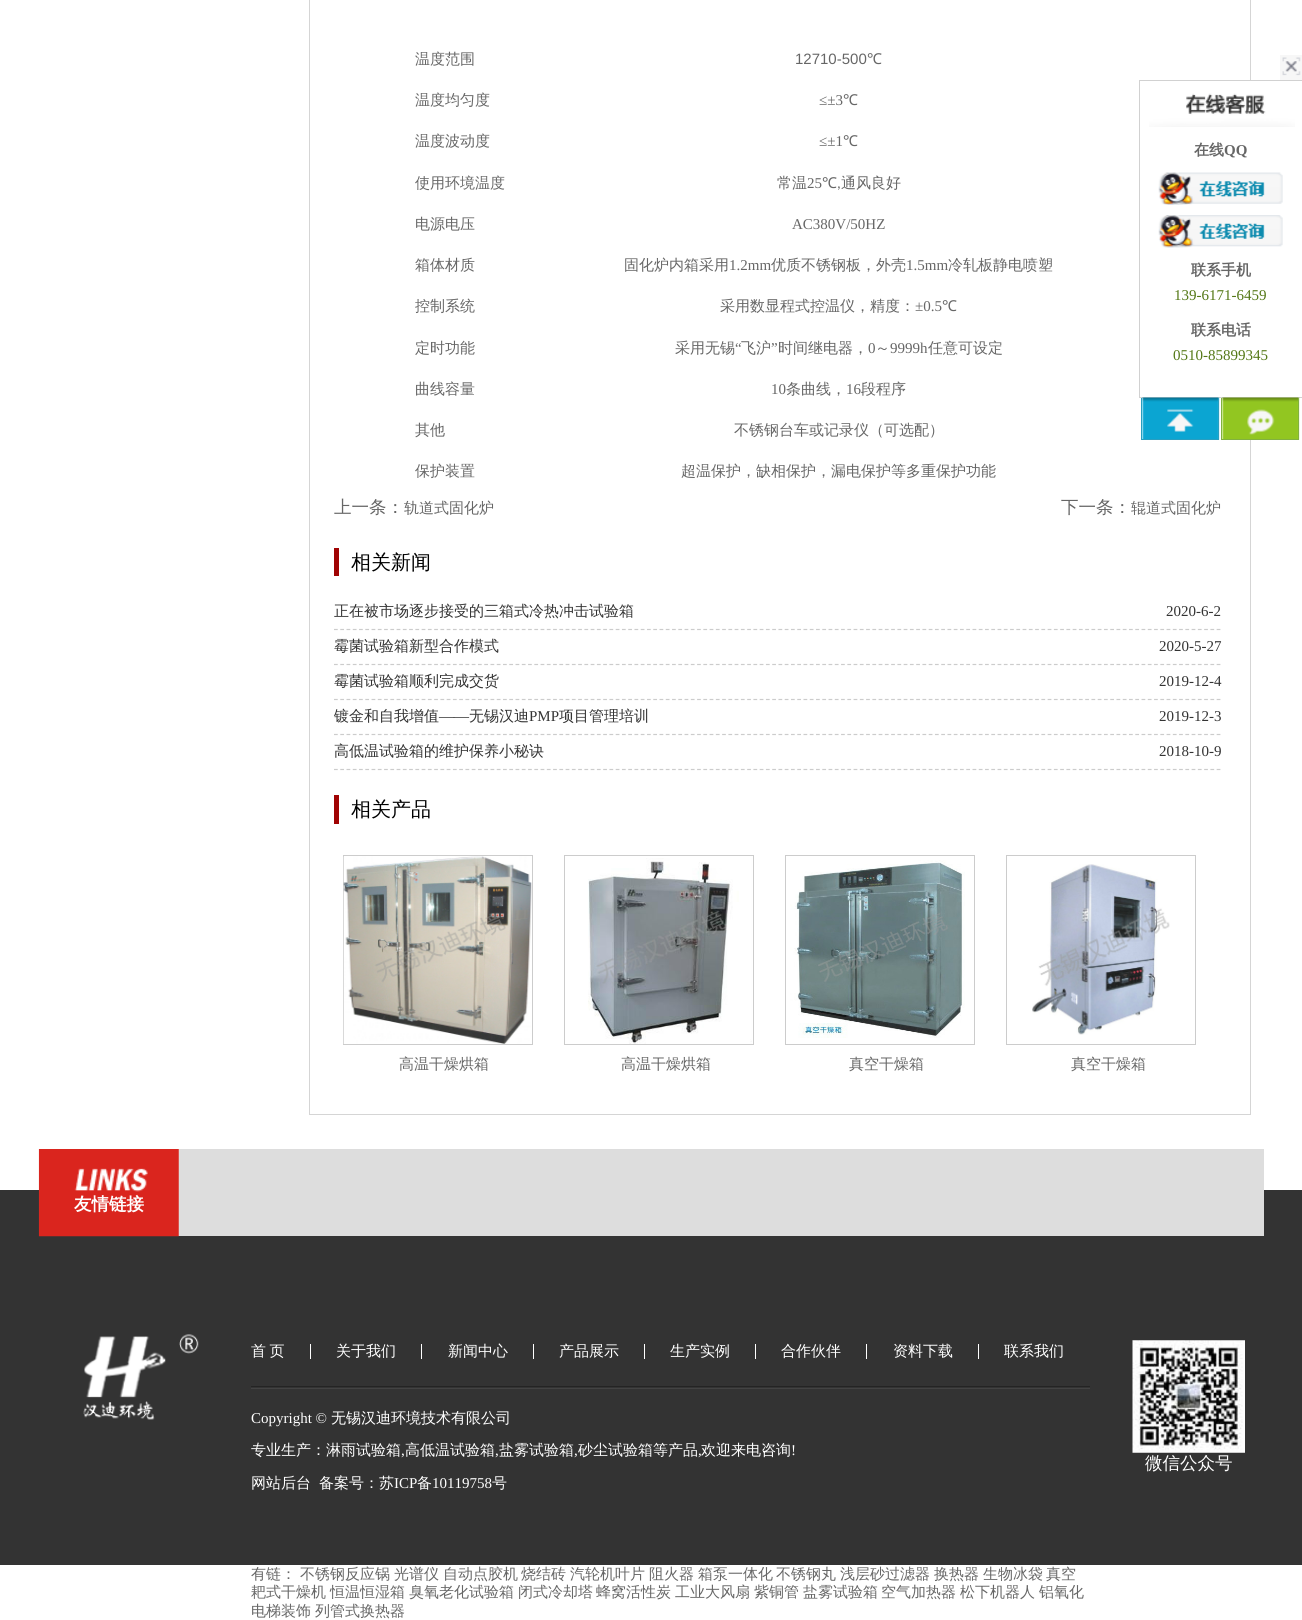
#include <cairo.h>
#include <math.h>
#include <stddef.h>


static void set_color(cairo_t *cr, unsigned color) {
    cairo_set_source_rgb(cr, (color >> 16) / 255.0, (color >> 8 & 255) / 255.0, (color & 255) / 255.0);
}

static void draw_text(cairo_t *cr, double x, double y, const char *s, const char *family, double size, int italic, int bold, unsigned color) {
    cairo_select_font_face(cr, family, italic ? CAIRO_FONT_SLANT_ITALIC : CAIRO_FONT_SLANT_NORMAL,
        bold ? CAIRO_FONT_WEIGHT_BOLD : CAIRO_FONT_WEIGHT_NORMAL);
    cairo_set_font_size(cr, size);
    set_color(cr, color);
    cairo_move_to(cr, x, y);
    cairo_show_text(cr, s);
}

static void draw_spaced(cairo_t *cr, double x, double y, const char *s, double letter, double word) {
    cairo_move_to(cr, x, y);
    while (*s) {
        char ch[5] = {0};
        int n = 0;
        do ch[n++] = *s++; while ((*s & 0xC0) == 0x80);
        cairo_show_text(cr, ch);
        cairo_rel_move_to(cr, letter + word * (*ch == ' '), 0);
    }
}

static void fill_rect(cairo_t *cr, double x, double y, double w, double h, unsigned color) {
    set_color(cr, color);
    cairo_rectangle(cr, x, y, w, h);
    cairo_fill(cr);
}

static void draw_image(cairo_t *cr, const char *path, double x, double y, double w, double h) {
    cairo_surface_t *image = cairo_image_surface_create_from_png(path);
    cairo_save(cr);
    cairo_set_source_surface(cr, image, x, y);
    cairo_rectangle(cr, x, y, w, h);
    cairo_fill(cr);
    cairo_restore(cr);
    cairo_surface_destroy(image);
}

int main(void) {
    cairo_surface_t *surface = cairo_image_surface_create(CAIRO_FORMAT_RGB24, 1302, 1620);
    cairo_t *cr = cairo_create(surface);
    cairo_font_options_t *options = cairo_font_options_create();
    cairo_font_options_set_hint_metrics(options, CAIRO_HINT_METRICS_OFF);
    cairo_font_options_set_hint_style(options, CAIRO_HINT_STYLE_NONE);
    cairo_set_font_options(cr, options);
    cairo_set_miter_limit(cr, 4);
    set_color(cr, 0xFFFFFF);
    cairo_paint(cr);
    cairo_rectangle(cr, 309.5, -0.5, 941, 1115);
    set_color(cr, 0xD5D5D5);
    cairo_set_line_width(cr, 1);
    cairo_stroke(cr);
    draw_text(cr, 415, 64, "温度范围", "WenQuanYi Zen Hei Medium", 15, 0, 0, 0x666666);
    draw_text(cr, 795, 64, "12710-500", "Liberation Sans", 15, 0, 0, 0x666666);
    draw_text(cr, 867, 64, "℃", "Noto Sans", 15, 0, 0, 0x666666);
    draw_text(cr, 415, 105, "温度均匀度", "WenQuanYi Zen Hei Medium", 15, 0, 0, 0x666666);
    draw_text(cr, 819, 105, "≤±3", "Liberation Serif", 15, 0, 0, 0x666666);
    draw_text(cr, 843, 105, "℃", "Noto Sans", 15, 0, 0, 0x666666);
    draw_text(cr, 415, 146, "温度波动度", "WenQuanYi Zen Hei Medium", 15, 0, 0, 0x666666);
    draw_text(cr, 819, 146, "≤±1", "Liberation Serif", 15, 0, 0, 0x666666);
    draw_text(cr, 843, 146, "℃", "Noto Sans", 15, 0, 0, 0x666666);
    draw_text(cr, 415, 188, "使用环境温度", "WenQuanYi Zen Hei Medium", 15, 0, 0, 0x666666);
    draw_text(cr, 777, 188, "常温", "WenQuanYi Zen Hei Medium", 15, 0, 0, 0x666666);
    draw_text(cr, 807, 188, "25", "Liberation Serif", 15, 0, 0, 0x666666);
    draw_text(cr, 822, 188, "℃", "Noto Sans", 15, 0, 0, 0x666666);
    draw_text(cr, 837, 188, ",", "Carlito", 15, 0, 0, 0x666666);
    draw_text(cr, 841, 188, "通风良好", "WenQuanYi Zen Hei Medium", 15, 0, 0, 0x666666);
    draw_text(cr, 415, 229, "电源电压", "WenQuanYi Zen Hei Medium", 15, 0, 0, 0x666666);
    draw_text(cr, 792, 229, "AC380V/50HZ", "Liberation Serif", 15, 0, 0, 0x666666);
    draw_text(cr, 415, 270, "箱体材质", "WenQuanYi Zen Hei Medium", 15, 0, 0, 0x666666);
    draw_text(cr, 624, 270, "固化炉内箱采用", "WenQuanYi Zen Hei Medium", 15, 0, 0, 0x666666);
    draw_text(cr, 729, 270, "1.2mm", "Liberation Serif", 15, 0, 0, 0x666666);
    draw_text(cr, 771, 270, "优质不锈钢板，外壳", "WenQuanYi Zen Hei Medium", 15, 0, 0, 0x666666);
    draw_text(cr, 906, 270, "1.5mm", "Liberation Serif", 15, 0, 0, 0x666666);
    draw_text(cr, 948, 270, "冷轧板静电喷塑", "WenQuanYi Zen Hei Medium", 15, 0, 0, 0x666666);
    draw_text(cr, 415, 311, "控制系统", "WenQuanYi Zen Hei Medium", 15, 0, 0, 0x666666);
    draw_text(cr, 720, 311, "采用数显程式控温仪，精度：", "WenQuanYi Zen Hei Medium", 15, 0, 0, 0x666666);
    draw_text(cr, 915, 311, "±0.5", "Liberation Serif", 15, 0, 0, 0x666666);
    draw_text(cr, 942, 311, "℃", "Noto Sans", 15, 0, 0, 0x666666);
    draw_text(cr, 415, 353, "定时功能", "WenQuanYi Zen Hei Medium", 15, 0, 0, 0x666666);
    draw_text(cr, 675, 353, "采用无锡", "WenQuanYi Zen Hei Medium", 15, 0, 0, 0x666666);
    draw_text(cr, 735, 353, "“", "Liberation Serif", 15, 0, 0, 0x666666);
    draw_text(cr, 741, 353, "飞沪", "WenQuanYi Zen Hei Medium", 15, 0, 0, 0x666666);
    draw_text(cr, 771, 353, "”", "Liberation Serif", 15, 0, 0, 0x666666);
    draw_text(cr, 778, 353, "时间继电器，", "WenQuanYi Zen Hei Medium", 15, 0, 0, 0x666666);
    draw_text(cr, 868, 353, "0", "Liberation Serif", 15, 0, 0, 0x666666);
    draw_text(cr, 875, 353, "～", "WenQuanYi Zen Hei Medium", 15, 0, 0, 0x666666);
    draw_text(cr, 890, 353, "9999h", "Liberation Serif", 15, 0, 0, 0x666666);
    draw_text(cr, 928, 353, "任意可设定", "WenQuanYi Zen Hei Medium", 15, 0, 0, 0x666666);
    draw_text(cr, 415, 394, "曲线容量", "WenQuanYi Zen Hei Medium", 15, 0, 0, 0x666666);
    draw_text(cr, 771, 394, "10", "Liberation Serif", 15, 0, 0, 0x666666);
    draw_text(cr, 786, 394, "条曲线，", "WenQuanYi Zen Hei Medium", 15, 0, 0, 0x666666);
    draw_text(cr, 846, 394, "16", "Liberation Serif", 15, 0, 0, 0x666666);
    draw_text(cr, 861, 394, "段程序", "WenQuanYi Zen Hei Medium", 15, 0, 0, 0x666666);
    draw_text(cr, 415, 435, "其他", "WenQuanYi Zen Hei Medium", 15, 0, 0, 0x666666);
    draw_text(cr, 734, 435, "不锈钢台车或记录仪（可选配）", "WenQuanYi Zen Hei Medium", 15, 0, 0, 0x666666);
    draw_text(cr, 415, 476, "保护装置", "WenQuanYi Zen Hei Medium", 15, 0, 0, 0x666666);
    draw_text(cr, 681, 476, "超温保护，缺相保护，漏电保护等多重保护功能", "WenQuanYi Zen Hei Medium", 15, 0, 0, 0x666666);
    draw_text(cr, 334, 513, "上一条：", "WenQuanYi Zen Hei Medium", 17.5, 0, 0, 0x666666);
    draw_text(cr, 404, 513, "轨道式固化炉", "WenQuanYi Zen Hei Medium", 15, 0, 0, 0x666666);
    draw_text(cr, 1061, 513, "下一条：", "WenQuanYi Zen Hei Medium", 17.5, 0, 0, 0x666666);
    draw_text(cr, 1131, 513, "辊道式固化炉", "WenQuanYi Zen Hei Medium", 15, 0, 0, 0x666666);
    fill_rect(cr, 334, 548, 5, 28, 0xA00303);
    draw_text(cr, 351, 569, "相关新闻", "WenQuanYi Zen Hei Medium", 20, 0, 0, 0x000000);
    cairo_new_path(cr);
    cairo_move_to(cr, 334, 629.5);
    cairo_line_to(cr, 1221, 629.5);
    set_color(cr, 0xCCCCCC);
    cairo_set_line_width(cr, 1.2);
    cairo_set_dash(cr, (double[]){3.75, 2.51}, 2, 0);
    cairo_stroke(cr);
    draw_text(cr, 334, 616, "正在被市场逐步接受的三箱式冷热冲击试验箱", "WenQuanYi Zen Hei Medium", 15, 0, 0, 0x333333);
    draw_text(cr, 1166, 616, "2020-6-2", "Liberation Serif", 15, 0, 0, 0x333333);
    cairo_new_path(cr);
    cairo_move_to(cr, 334, 664.5);
    cairo_line_to(cr, 1221, 664.5);
    set_color(cr, 0xCCCCCC);
    cairo_stroke(cr);
    draw_text(cr, 334, 651, "霉菌试验箱新型合作模式", "WenQuanYi Zen Hei Medium", 15, 0, 0, 0x333333);
    draw_text(cr, 1159, 651, "2020-5-27", "Liberation Serif", 15, 0, 0, 0x333333);
    cairo_new_path(cr);
    cairo_move_to(cr, 334, 699.5);
    cairo_line_to(cr, 1221, 699.5);
    set_color(cr, 0xCCCCCC);
    cairo_stroke(cr);
    draw_text(cr, 334, 686, "霉菌试验箱顺利完成交货", "WenQuanYi Zen Hei Medium", 15, 0, 0, 0x333333);
    draw_text(cr, 1159, 686, "2019-12-4", "Liberation Serif", 15, 0, 0, 0x333333);
    cairo_new_path(cr);
    cairo_move_to(cr, 334, 734.5);
    cairo_line_to(cr, 1221, 734.5);
    set_color(cr, 0xCCCCCC);
    cairo_stroke(cr);
    draw_text(cr, 334, 721, "镀金和自我增值", "WenQuanYi Zen Hei Medium", 15, 0, 0, 0x333333);
    draw_text(cr, 439, 721, "——", "Liberation Serif", 15, 0, 0, 0x333333);
    draw_text(cr, 469, 721, "无锡汉迪", "WenQuanYi Zen Hei Medium", 15, 0, 0, 0x333333);
    draw_text(cr, 529, 721, "PMP", "Liberation Serif", 15, 0, 0, 0x333333);
    draw_text(cr, 559, 721, "项目管理培训", "WenQuanYi Zen Hei Medium", 15, 0, 0, 0x333333);
    draw_text(cr, 1159, 721, "2019-12-3", "Liberation Serif", 15, 0, 0, 0x333333);
    cairo_new_path(cr);
    cairo_move_to(cr, 334, 769.5);
    cairo_line_to(cr, 1221, 769.5);
    set_color(cr, 0xCCCCCC);
    cairo_stroke(cr);
    draw_text(cr, 334, 756, "高低温试验箱的维护保养小秘诀", "WenQuanYi Zen Hei Medium", 15, 0, 0, 0x333333);
    draw_text(cr, 1159, 756, "2018-10-9", "Liberation Serif", 15, 0, 0, 0x333333);
    fill_rect(cr, 334, 795, 5, 29, 0xA00303);
    draw_text(cr, 351, 816, "相关产品", "WenQuanYi Zen Hei Medium", 20, 0, 0, 0x000000);
    cairo_rectangle(cr, 343.5, 855.5, 189, 189);
    set_color(cr, 0xCCCCCC);
    cairo_set_line_width(cr, 1);
    cairo_set_dash(cr, NULL, 0, 0);
    cairo_stroke(cr);
    draw_image(cr, "assets/img1.png", 343, 856, 189, 188);
    draw_text(cr, 399, 1069, "高温干燥烘箱", "WenQuanYi Zen Hei Medium", 15, 0, 0, 0x666666);
    cairo_rectangle(cr, 564.5, 855.5, 189, 189);
    set_color(cr, 0xCCCCCC);
    cairo_stroke(cr);
    draw_image(cr, "assets/img2.png", 588, 858, 164, 186);
    draw_text(cr, 621, 1069, "高温干燥烘箱", "WenQuanYi Zen Hei Medium", 15, 0, 0, 0x666666);
    cairo_rectangle(cr, 785.5, 855.5, 189, 189);
    set_color(cr, 0xCCCCCC);
    cairo_stroke(cr);
    draw_image(cr, "assets/img3.png", 790, 860, 175, 178);
    draw_text(cr, 849, 1069, "真空干燥箱", "WenQuanYi Zen Hei Medium", 15, 0, 0, 0x666666);
    cairo_rectangle(cr, 1006.5, 855.5, 189, 189);
    set_color(cr, 0xCCCCCC);
    cairo_stroke(cr);
    draw_image(cr, "assets/img4.png", 1032, 864, 138, 171);
    draw_text(cr, 1071, 1069, "真空干燥箱", "WenQuanYi Zen Hei Medium", 15, 0, 0, 0x666666);
    fill_rect(cr, 1280, 55, 22, 25, 0xF7F7F7);
    draw_image(cr, "assets/img5.png", 1282, 57, 19, 19);
    fill_rect(cr, 1250, 81, 1, 316, 0xFFFFFF);
    draw_image(cr, "assets/img6.png", 1149, 93, 146, 34);
    cairo_rectangle(cr, 1139.5, 80.5, 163, 317);
    set_color(cr, 0xD1D1D1);
    cairo_stroke(cr);
    draw_text(cr, 1194, 155, "在线", "WenQuanYi Zen Hei", 15, 0, 1, 0x666666);
    draw_text(cr, 1224, 155, "QQ", "Liberation Serif", 15, 0, 1, 0x666666);
    draw_image(cr, "assets/img7.png", 1158, 172, 125, 33);
    draw_image(cr, "assets/img8.png", 1158, 215, 125, 33);
    draw_text(cr, 1191, 275, "联系手机", "WenQuanYi Zen Hei", 15, 0, 1, 0x666666);
    draw_text(cr, 1174, 300, "139-6171-6459", "Liberation Serif", 15, 0, 0, 0x547816);
    draw_text(cr, 1191, 335, "联系电话", "WenQuanYi Zen Hei", 15, 0, 1, 0x666666);
    draw_text(cr, 1173, 360, "0510-85899345", "Liberation Serif", 15, 0, 0, 0x547816);
    draw_image(cr, "assets/img9.png", 1142, 397, 78, 43);
    fill_rect(cr, 1218, 398, 1, 42, 0x299EC0);
    fill_rect(cr, 1141, 439, 78, 1, 0x299EC0);
    fill_rect(cr, 1141, 398, 1, 42, 0x299EC0);
    draw_image(cr, "assets/img10.png", 1222, 397, 78, 43);
    fill_rect(cr, 1298, 398, 1, 42, 0x81B140);
    fill_rect(cr, 1221, 439, 78, 1, 0x81B140);
    fill_rect(cr, 1221, 398, 1, 42, 0x81B140);
    fill_rect(cr, 0, 1190, 1302, 375, 0x333333);
    fill_rect(cr, 178, 1149, 1086, 87, 0xDDDDDD);
    draw_image(cr, "assets/img11.png", 38, 1149, 141, 88);
    draw_text(cr, 74, 1210, "友情链接", "WenQuanYi Zen Hei", 17.5, 0, 1, 0xFFFFFF);
    draw_image(cr, "assets/img12.png", 83, 1334, 116, 86);
    fill_rect(cr, 251, 1386, 839, 1, 0x242424);
    cairo_select_font_face(cr, "WenQuanYi Zen Hei Medium", CAIRO_FONT_SLANT_NORMAL, CAIRO_FONT_WEIGHT_NORMAL);
    cairo_set_font_size(cr, 15);
    set_color(cr, 0xFFFFFF);
    draw_spaced(cr, 251, 1356, "首 页", 0, -1);
    fill_rect(cr, 310, 1344, 1, 15, 0xFFFFFF);
    draw_text(cr, 336, 1356, "关于我们", "WenQuanYi Zen Hei Medium", 15, 0, 0, 0xFFFFFF);
    fill_rect(cr, 421, 1344, 1, 15, 0xFFFFFF);
    draw_text(cr, 448, 1356, "新闻中心", "WenQuanYi Zen Hei Medium", 15, 0, 0, 0xFFFFFF);
    fill_rect(cr, 533, 1344, 1, 15, 0xFFFFFF);
    draw_text(cr, 559, 1356, "产品展示", "WenQuanYi Zen Hei Medium", 15, 0, 0, 0xFFFFFF);
    fill_rect(cr, 644, 1344, 1, 15, 0xFFFFFF);
    draw_text(cr, 670, 1356, "生产实例", "WenQuanYi Zen Hei Medium", 15, 0, 0, 0xFFFFFF);
    fill_rect(cr, 755, 1344, 1, 15, 0xFFFFFF);
    draw_text(cr, 781, 1356, "合作伙伴", "WenQuanYi Zen Hei Medium", 15, 0, 0, 0xFFFFFF);
    fill_rect(cr, 866, 1344, 1, 15, 0xFFFFFF);
    draw_text(cr, 893, 1356, "资料下载", "WenQuanYi Zen Hei Medium", 15, 0, 0, 0xFFFFFF);
    fill_rect(cr, 978, 1344, 1, 15, 0xFFFFFF);
    draw_text(cr, 1004, 1356, "联系我们", "WenQuanYi Zen Hei Medium", 15, 0, 0, 0xFFFFFF);
    fill_rect(cr, 251, 1388, 839, 1, 0x434343);
    draw_text(cr, 251, 1423, "Copyright ©", "Liberation Serif", 15, 0, 0, 0xFFFFFF);
    draw_text(cr, 331, 1423, "无锡汉迪环境技术有限公司", "WenQuanYi Zen Hei Medium", 15, 0, 0, 0xFFFFFF);
    draw_text(cr, 251, 1455, "专业生产：淋雨试验箱", "WenQuanYi Zen Hei Medium", 15, 0, 0, 0xFFFFFF);
    draw_text(cr, 401, 1455, ",", "Liberation Serif", 15, 0, 0, 0xFFFFFF);
    draw_text(cr, 405, 1455, "高低温试验箱", "WenQuanYi Zen Hei Medium", 15, 0, 0, 0xFFFFFF);
    draw_text(cr, 495, 1455, ",", "Liberation Serif", 15, 0, 0, 0xFFFFFF);
    draw_text(cr, 499, 1455, "盐雾试验箱", "WenQuanYi Zen Hei Medium", 15, 0, 0, 0xFFFFFF);
    draw_text(cr, 574, 1455, ",", "Liberation Serif", 15, 0, 0, 0xFFFFFF);
    draw_text(cr, 578, 1455, "砂尘试验箱等产品", "WenQuanYi Zen Hei Medium", 15, 0, 0, 0xFFFFFF);
    draw_text(cr, 698, 1455, ",", "Liberation Serif", 15, 0, 0, 0xFFFFFF);
    draw_text(cr, 701, 1455, "欢迎来电咨询", "WenQuanYi Zen Hei Medium", 15, 0, 0, 0xFFFFFF);
    draw_text(cr, 791, 1455, "!", "Liberation Serif", 15, 0, 0, 0xFFFFFF);
    draw_text(cr, 251, 1488, "网站后台", "WenQuanYi Zen Hei Medium", 15, 0, 0, 0xFFFFFF);
    draw_text(cr, 319, 1488, "备案号：苏", "WenQuanYi Zen Hei Medium", 15, 0, 0, 0xFFFFFF);
    draw_text(cr, 394, 1488, "ICP", "Liberation Serif", 15, 0, 0, 0xFFFFFF);
    draw_text(cr, 417, 1488, "备", "WenQuanYi Zen Hei Medium", 15, 0, 0, 0xFFFFFF);
    draw_text(cr, 432, 1488, "10119758", "Liberation Serif", 15, 0, 0, 0xFFFFFF);
    draw_text(cr, 492, 1488, "号", "WenQuanYi Zen Hei Medium", 15, 0, 0, 0xFFFFFF);
    draw_text(cr, 251, 1579, "有链：", "WenQuanYi Zen Hei Medium", 15, 0, 0, 0x666666);
    draw_text(cr, 300, 1579, "不锈钢反应锅", "WenQuanYi Zen Hei Medium", 15, 0, 0, 0x666666);
    draw_text(cr, 394, 1579, "光谱仪", "WenQuanYi Zen Hei Medium", 15, 0, 0, 0x666666);
    draw_text(cr, 443, 1579, "自动点胶机", "WenQuanYi Zen Hei Medium", 15, 0, 0, 0x666666);
    draw_text(cr, 521, 1579, "烧结砖", "WenQuanYi Zen Hei Medium", 15, 0, 0, 0x666666);
    draw_text(cr, 570, 1579, "汽轮机叶片", "WenQuanYi Zen Hei Medium", 15, 0, 0, 0x666666);
    draw_text(cr, 649, 1579, "阻火器", "WenQuanYi Zen Hei Medium", 15, 0, 0, 0x666666);
    draw_text(cr, 698, 1579, "箱泵一体化", "WenQuanYi Zen Hei Medium", 15, 0, 0, 0x666666);
    draw_text(cr, 776, 1579, "不锈钢丸", "WenQuanYi Zen Hei Medium", 15, 0, 0, 0x666666);
    draw_text(cr, 840, 1579, "浅层砂过滤器", "WenQuanYi Zen Hei Medium", 15, 0, 0, 0x666666);
    draw_text(cr, 934, 1579, "换热器", "WenQuanYi Zen Hei Medium", 15, 0, 0, 0x666666);
    draw_text(cr, 983, 1579, "生物冰袋", "WenQuanYi Zen Hei Medium", 15, 0, 0, 0x666666);
    draw_text(cr, 1046, 1579, "真空", "WenQuanYi Zen Hei Medium", 15, 0, 0, 0x666666);
    draw_text(cr, 251, 1597, "耙式干燥机", "WenQuanYi Zen Hei Medium", 15, 0, 0, 0x666666);
    draw_text(cr, 330, 1597, "恒温恒湿箱", "WenQuanYi Zen Hei Medium", 15, 0, 0, 0x666666);
    draw_text(cr, 409, 1597, "臭氧老化试验箱", "WenQuanYi Zen Hei Medium", 15, 0, 0, 0x666666);
    draw_text(cr, 518, 1597, "闭式冷却塔", "WenQuanYi Zen Hei Medium", 15, 0, 0, 0x666666);
    draw_text(cr, 596, 1597, "蜂窝活性炭", "WenQuanYi Zen Hei Medium", 15, 0, 0, 0x666666);
    draw_text(cr, 675, 1597, "工业大风扇", "WenQuanYi Zen Hei Medium", 15, 0, 0, 0x666666);
    draw_text(cr, 754, 1597, "紫铜管", "WenQuanYi Zen Hei Medium", 15, 0, 0, 0x666666);
    draw_text(cr, 803, 1597, "盐雾试验箱", "WenQuanYi Zen Hei Medium", 15, 0, 0, 0x666666);
    draw_text(cr, 881, 1597, "空气加热器", "WenQuanYi Zen Hei Medium", 15, 0, 0, 0x666666);
    draw_text(cr, 960, 1597, "松下机器人", "WenQuanYi Zen Hei Medium", 15, 0, 0, 0x666666);
    draw_text(cr, 1039, 1597, "铝氧化", "WenQuanYi Zen Hei Medium", 15, 0, 0, 0x666666);
    draw_text(cr, 251, 1616, "电梯装饰", "WenQuanYi Zen Hei Medium", 15, 0, 0, 0x666666);
    draw_text(cr, 315, 1616, "列管式换热器", "WenQuanYi Zen Hei Medium", 15, 0, 0, 0x666666);
    draw_image(cr, "assets/img13.png", 1132, 1340, 113, 113);
    draw_text(cr, 1145, 1469, "微信公众号", "WenQuanYi Zen Hei Medium", 17.5, 0, 0, 0xFFFFFF);
    cairo_surface_write_to_png(surface, "output.png");
    cairo_font_options_destroy(options);
    cairo_destroy(cr);
    cairo_surface_destroy(surface);
    return 0;
}
